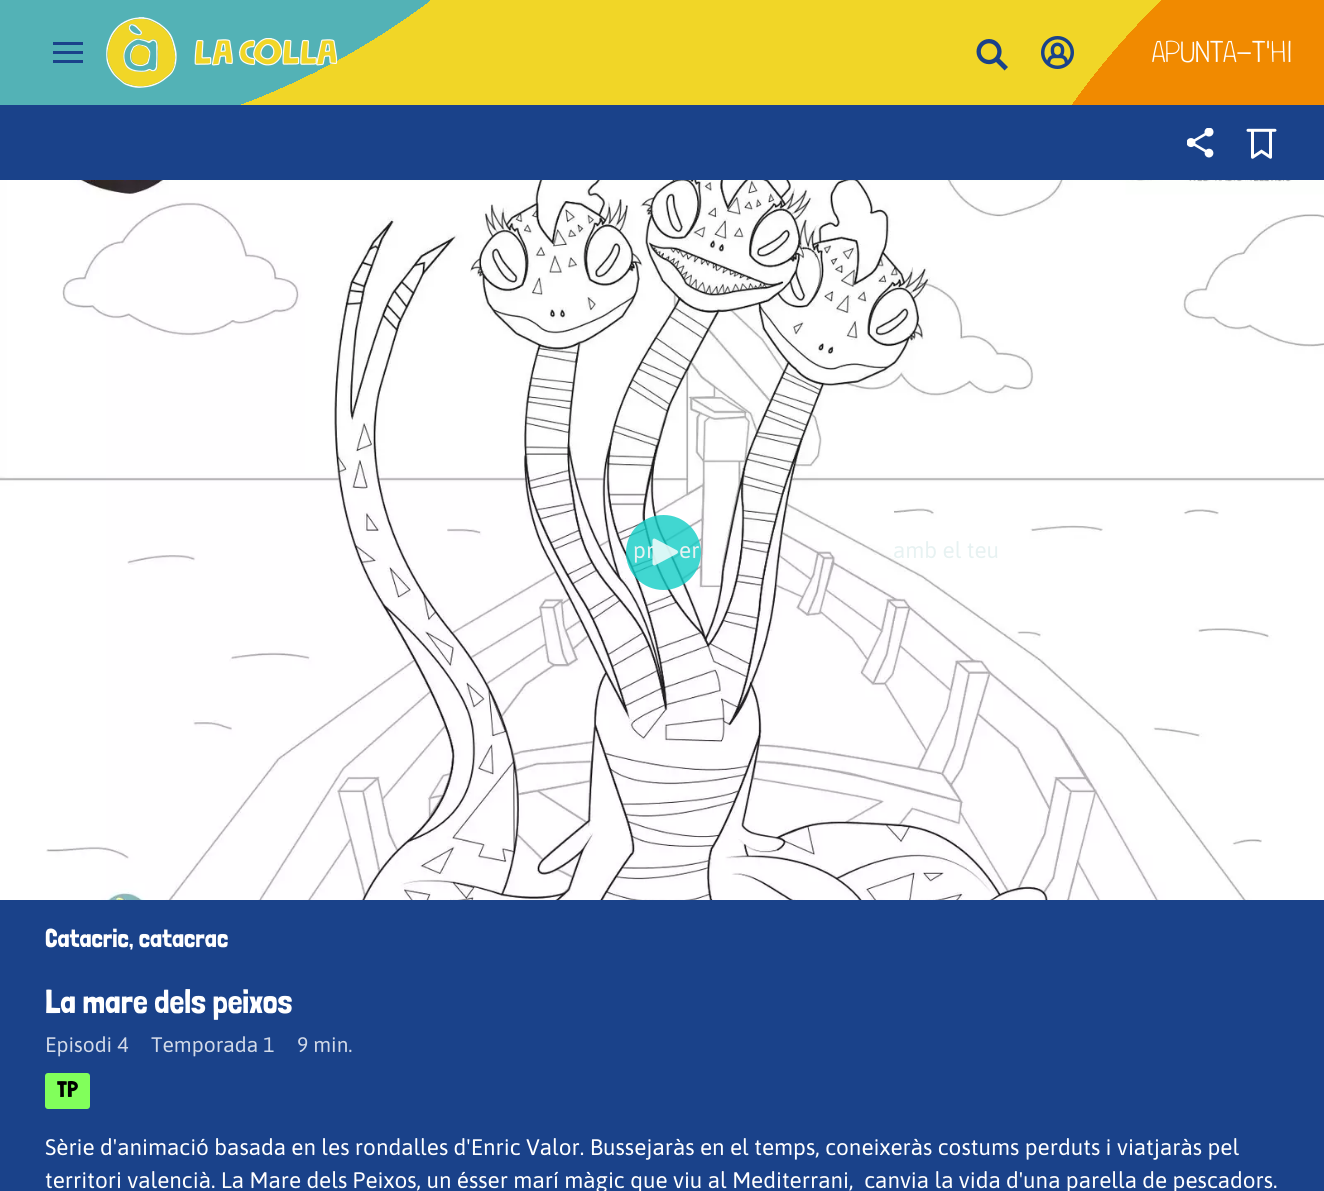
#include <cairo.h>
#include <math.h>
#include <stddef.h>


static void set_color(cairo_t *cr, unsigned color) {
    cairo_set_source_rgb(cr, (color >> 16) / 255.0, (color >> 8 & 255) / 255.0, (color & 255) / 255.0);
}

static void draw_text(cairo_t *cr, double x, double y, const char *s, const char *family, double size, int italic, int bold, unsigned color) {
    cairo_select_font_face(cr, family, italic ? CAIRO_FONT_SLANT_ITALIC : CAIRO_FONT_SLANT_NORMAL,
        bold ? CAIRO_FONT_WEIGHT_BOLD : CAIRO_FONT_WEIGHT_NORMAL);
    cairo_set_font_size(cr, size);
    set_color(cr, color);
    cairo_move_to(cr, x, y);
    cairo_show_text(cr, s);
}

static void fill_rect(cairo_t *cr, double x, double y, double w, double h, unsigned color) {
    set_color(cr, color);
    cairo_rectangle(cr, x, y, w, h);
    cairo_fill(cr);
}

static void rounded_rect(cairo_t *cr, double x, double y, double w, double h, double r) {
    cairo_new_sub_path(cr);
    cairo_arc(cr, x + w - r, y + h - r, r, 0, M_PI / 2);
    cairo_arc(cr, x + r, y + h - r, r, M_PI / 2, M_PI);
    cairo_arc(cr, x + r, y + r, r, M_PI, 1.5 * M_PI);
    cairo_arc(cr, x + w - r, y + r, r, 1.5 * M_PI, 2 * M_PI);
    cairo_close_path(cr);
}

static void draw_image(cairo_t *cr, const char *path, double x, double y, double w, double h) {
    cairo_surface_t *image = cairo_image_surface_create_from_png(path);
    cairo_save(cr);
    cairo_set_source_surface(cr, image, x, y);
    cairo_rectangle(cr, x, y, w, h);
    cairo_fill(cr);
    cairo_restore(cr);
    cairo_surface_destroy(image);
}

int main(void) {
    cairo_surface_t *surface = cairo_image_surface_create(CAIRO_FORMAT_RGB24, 1324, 1191);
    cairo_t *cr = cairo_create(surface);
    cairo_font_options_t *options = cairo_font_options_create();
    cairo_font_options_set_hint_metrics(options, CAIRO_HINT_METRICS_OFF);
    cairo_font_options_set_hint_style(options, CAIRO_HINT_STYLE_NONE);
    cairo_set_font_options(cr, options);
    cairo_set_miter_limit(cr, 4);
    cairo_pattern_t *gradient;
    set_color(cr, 0x1A428A);
    cairo_paint(cr);
    gradient = cairo_pattern_create_radial(1685, 540, 0, 1685, 540, 752);
    cairo_pattern_add_color_stop_rgba(gradient, 1, 0.945, 0.541, 0, 1);
    cairo_pattern_add_color_stop_rgba(gradient, 1, 0.945, 0.839, 0.153, 1);
    cairo_set_source(cr, gradient);
    cairo_pattern_destroy(gradient);
    cairo_rectangle(cr, 241, 0, 1083, 105);
    cairo_fill(cr);
    gradient = cairo_pattern_create_radial(-22, -600, 0, -22, -600, 752);
    cairo_pattern_add_color_stop_rgba(gradient, 1, 0.325, 0.698, 0.714, 1);
    cairo_pattern_add_color_stop_rgba(gradient, 1, 0.325, 0.698, 0.714, 0);
    cairo_set_source(cr, gradient);
    cairo_pattern_destroy(gradient);
    cairo_rectangle(cr, 0, 0, 430, 105);
    cairo_fill(cr);
    fill_rect(cr, 53, 42, 30, 3, 0x1A428A);
    fill_rect(cr, 53, 51, 30, 3, 0x1A428A);
    fill_rect(cr, 53, 60, 30, 3, 0x1A428A);
    draw_image(cr, "assets/img1.png", 106, 17, 232, 71);
    draw_image(cr, "assets/img2.png", 976, 39, 32, 32);
    draw_image(cr, "assets/img3.png", 1041, 36, 33, 33);
    draw_text(cr, 1152, 62, "APUNTA-T'HI", "Londrina Solid Thin", 30, 0, 0, 0xFFFFFF);
    draw_image(cr, "assets/img4.png", 0, 180, 1324, 720);
    cairo_set_source_rgba(cr, 0.071, 0.804, 0.776, 0.8);
    cairo_arc(cr, 663.5, 552.5, 37.5, 0, 2 * M_PI);
    cairo_fill(cr);
    draw_image(cr, "assets/img5.png", 652, 538, 26, 28);
    draw_image(cr, "assets/img6.png", 1187, 128, 27, 30);
    draw_image(cr, "assets/img7.png", 1246, 128, 31, 31);
    draw_text(cr, 633, 558, "pr", "Asap", 22.5, 0, 0, 0xE7F2F2);
    draw_text(cr, 679, 558, "er", "Asap", 22.5, 0, 0, 0xE7F2F2);
    draw_text(cr, 893, 558, "amb el teu", "Asap", 22.5, 0, 0, 0xE7F2F2);
    draw_text(cr, 45, 947, "Catacric, catacrac", "Londrina Solid", 25.5, 0, 0, 0xFFFFFF);
    draw_text(cr, 45, 1013, "La mare dels peixos", "Londrina Solid", 33, 0, 0, 0xFFFFFF);
    draw_text(cr, 45, 1052, "Episodi 4", "Asap", 21, 0, 0, 0xD1D9E8);
    draw_text(cr, 151, 1052, "Temporada 1", "Asap", 21, 0, 0, 0xD1D9E8);
    draw_text(cr, 297, 1052, "9 min.", "Asap", 21, 0, 0, 0xD1D9E8);
    set_color(cr, 0x81FF5B);
    rounded_rect(cr, 45, 1073, 45, 36, 3);
    cairo_fill(cr);
    draw_text(cr, 57, 1097, "TP", "Londrina Solid", 22.5, 0, 0, 0x000000);
    draw_text(cr, 45, 1155, "Sèrie d'animació basada en les rondalles d'Enric Valor. Bussejaràs en el temps, coneixeràs costums perduts i viatjaràs pel", "Asap", 22.5, 0, 0, 0xFFFFFF);
    draw_text(cr, 45, 1188, "territori valencià. La Mare dels Peixos, un ésser marí màgic que viu al Mediterrani,  canvia la vida d'una parella de pescadors.", "Asap", 22.5, 0, 0, 0xFFFFFF);
    cairo_surface_write_to_png(surface, "output.png");
    cairo_font_options_destroy(options);
    cairo_destroy(cr);
    cairo_surface_destroy(surface);
    return 0;
}
